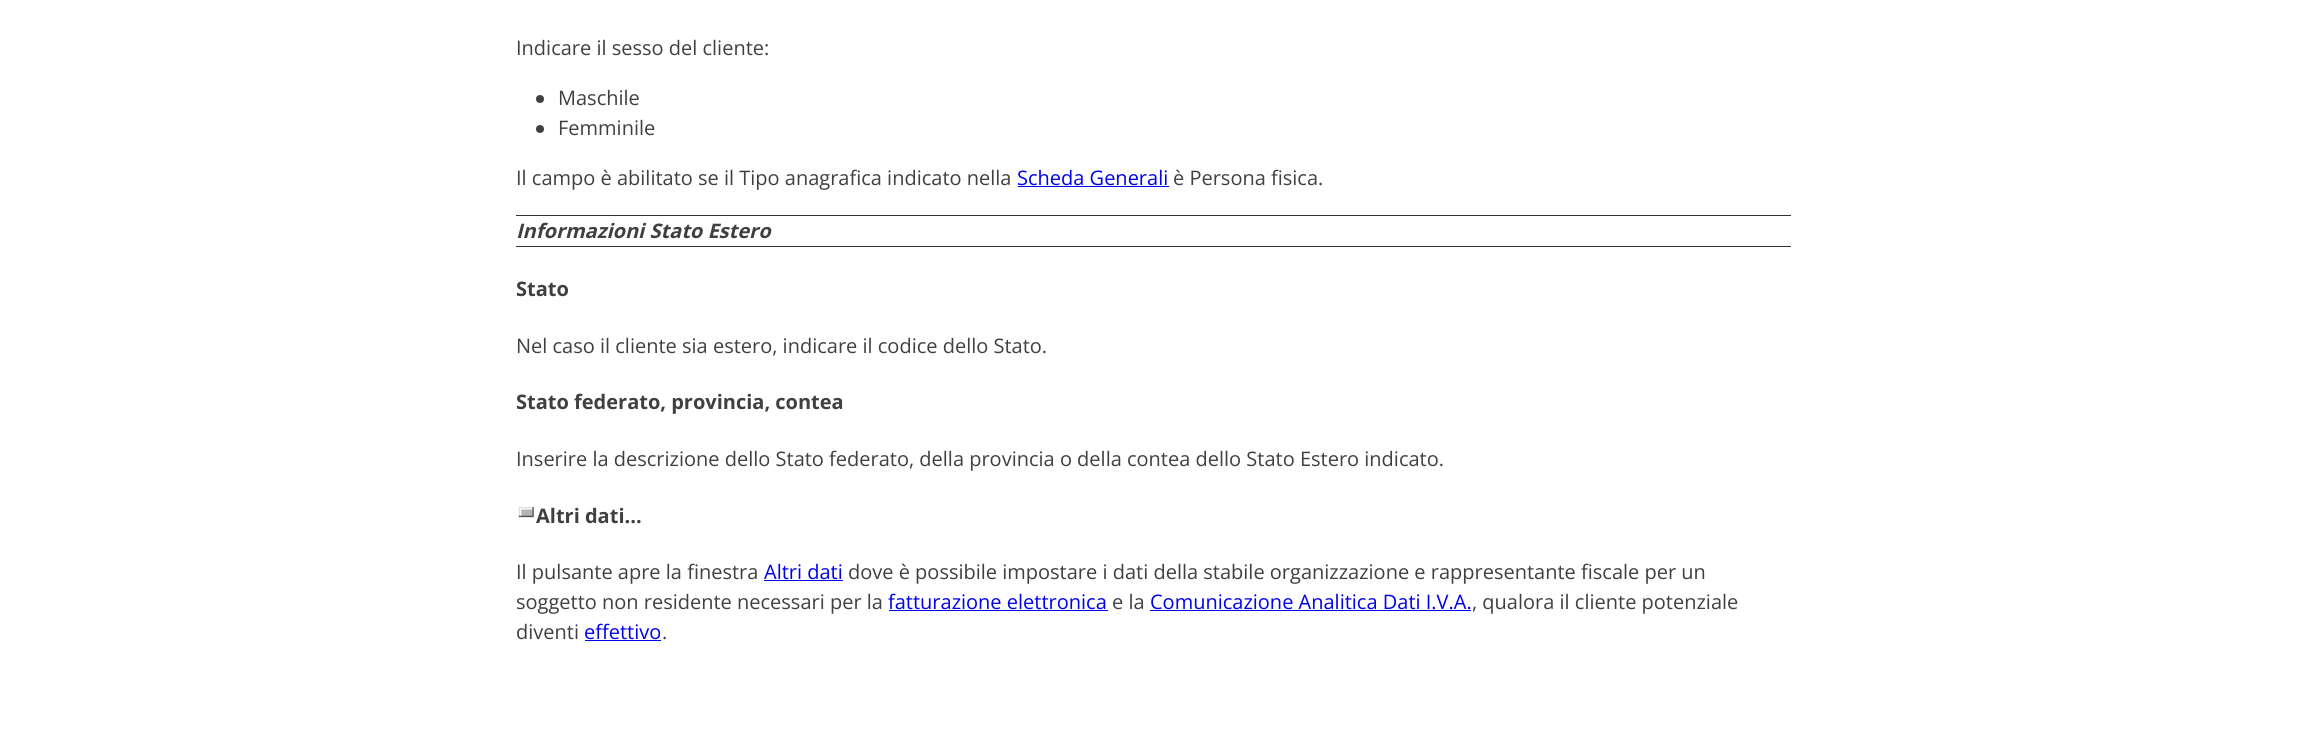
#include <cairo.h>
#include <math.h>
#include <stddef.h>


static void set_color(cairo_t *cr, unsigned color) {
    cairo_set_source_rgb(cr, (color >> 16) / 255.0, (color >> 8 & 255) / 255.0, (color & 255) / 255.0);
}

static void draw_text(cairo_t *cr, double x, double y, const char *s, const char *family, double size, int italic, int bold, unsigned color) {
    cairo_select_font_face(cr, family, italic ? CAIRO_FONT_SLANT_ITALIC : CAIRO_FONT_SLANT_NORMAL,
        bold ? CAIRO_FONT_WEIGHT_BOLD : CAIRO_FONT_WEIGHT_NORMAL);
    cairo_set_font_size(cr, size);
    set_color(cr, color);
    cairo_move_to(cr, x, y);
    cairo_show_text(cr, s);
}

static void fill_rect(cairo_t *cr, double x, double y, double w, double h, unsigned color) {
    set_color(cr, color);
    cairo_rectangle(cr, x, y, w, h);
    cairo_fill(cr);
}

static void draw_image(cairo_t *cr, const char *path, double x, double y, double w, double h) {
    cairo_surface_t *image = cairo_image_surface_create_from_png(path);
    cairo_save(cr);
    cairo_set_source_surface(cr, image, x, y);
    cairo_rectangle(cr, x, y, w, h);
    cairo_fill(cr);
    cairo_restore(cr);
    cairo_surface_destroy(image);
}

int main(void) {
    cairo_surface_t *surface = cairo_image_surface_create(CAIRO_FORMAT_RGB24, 2307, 738);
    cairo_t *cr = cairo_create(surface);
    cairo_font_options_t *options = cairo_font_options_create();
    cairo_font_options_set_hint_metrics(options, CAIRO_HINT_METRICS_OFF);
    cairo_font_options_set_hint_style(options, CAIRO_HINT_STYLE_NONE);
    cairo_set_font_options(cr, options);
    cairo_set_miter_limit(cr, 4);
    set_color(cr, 0xFFFFFF);
    cairo_paint(cr);
    draw_text(cr, 516, 55, "Indicare il sesso del cliente:", "Open Sans", 20, 0, 0, 0x404040);
    cairo_new_path(cr);
    cairo_arc(cr, 540, 99, 4, 0, 2 * M_PI);
    cairo_fill(cr);
    draw_text(cr, 558, 105, "Maschile", "Open Sans", 20, 0, 0, 0x404040);
    cairo_new_path(cr);
    cairo_arc(cr, 540, 129, 4, 0, 2 * M_PI);
    cairo_fill(cr);
    draw_text(cr, 558, 135, "Femminile", "Open Sans", 20, 0, 0, 0x404040);
    draw_text(cr, 516, 185, "Il campo è abilitato se il Tipo anagrafica indicato nella", "Open Sans", 20, 0, 0, 0x404040);
    draw_text(cr, 1017, 185, "Scheda Generali", "Open Sans", 20, 0, 0, 0x0000EE);
    fill_rect(cr, 1018, 186, 151, 1, 0x0000EE);
    draw_text(cr, 1173, 185, "è Persona fisica.", "Open Sans", 20, 0, 0, 0x404040);
    fill_rect(cr, 516, 215, 1275, 1, 0x333333);
    fill_rect(cr, 516, 246, 1275, 1, 0x333333);
    draw_text(cr, 516, 238, "Informazioni Stato Estero", "Open Sans", 20, 1, 1, 0x404040);
    draw_text(cr, 516, 296, "Stato", "Open Sans", 20, 0, 1, 0x404040);
    draw_text(cr, 516, 353, "Nel caso il cliente sia estero, indicare il codice dello Stato.", "Open Sans", 20, 0, 0, 0x404040);
    draw_text(cr, 516, 409, "Stato federato, provincia, contea", "Open Sans", 20, 0, 1, 0x404040);
    draw_text(cr, 516, 466, "Inserire la descrizione dello Stato federato, della provincia o della contea dello Stato Estero indicato.", "Open Sans", 20, 0, 0, 0x404040);
    draw_image(cr, "assets/img1.png", 518, 506, 16, 12);
    draw_text(cr, 536, 523, "Altri dati...", "Open Sans", 20, 0, 1, 0x404040);
    draw_text(cr, 516, 579, "Il pulsante apre la finestra", "Open Sans", 20, 0, 0, 0x404040);
    draw_text(cr, 764, 579, "Altri dati", "Open Sans", 20, 0, 0, 0x0000EE);
    fill_rect(cr, 764, 580, 79, 1, 0x0000EE);
    draw_text(cr, 848, 579, "dove è possibile impostare i dati della stabile organizzazione e rappresentante fiscale per un", "Open Sans", 20, 0, 0, 0x404040);
    draw_text(cr, 516, 609, "soggetto non residente necessari per la", "Open Sans", 20, 0, 0, 0x404040);
    draw_text(cr, 888, 609, "fatturazione elettronica", "Open Sans", 20, 0, 0, 0x0000EE);
    fill_rect(cr, 889, 610, 219, 1, 0x0000EE);
    draw_text(cr, 1112, 609, "e la", "Open Sans", 20, 0, 0, 0x404040);
    draw_text(cr, 1150, 609, "Comunicazione Analitica Dati I.V.A.", "Open Sans", 20, 0, 0, 0x0000EE);
    fill_rect(cr, 1150, 610, 321, 1, 0x0000EE);
    draw_text(cr, 1472, 609, ", qualora il cliente potenziale", "Open Sans", 20, 0, 0, 0x404040);
    draw_text(cr, 516, 639, "diventi", "Open Sans", 20, 0, 0, 0x404040);
    draw_text(cr, 584, 639, "effettivo", "Open Sans", 20, 0, 0, 0x0000EE);
    fill_rect(cr, 585, 640, 76, 1, 0x0000EE);
    draw_text(cr, 662, 639, ".", "Open Sans", 20, 0, 0, 0x404040);
    cairo_surface_write_to_png(surface, "output.png");
    cairo_font_options_destroy(options);
    cairo_destroy(cr);
    cairo_surface_destroy(surface);
    return 0;
}
